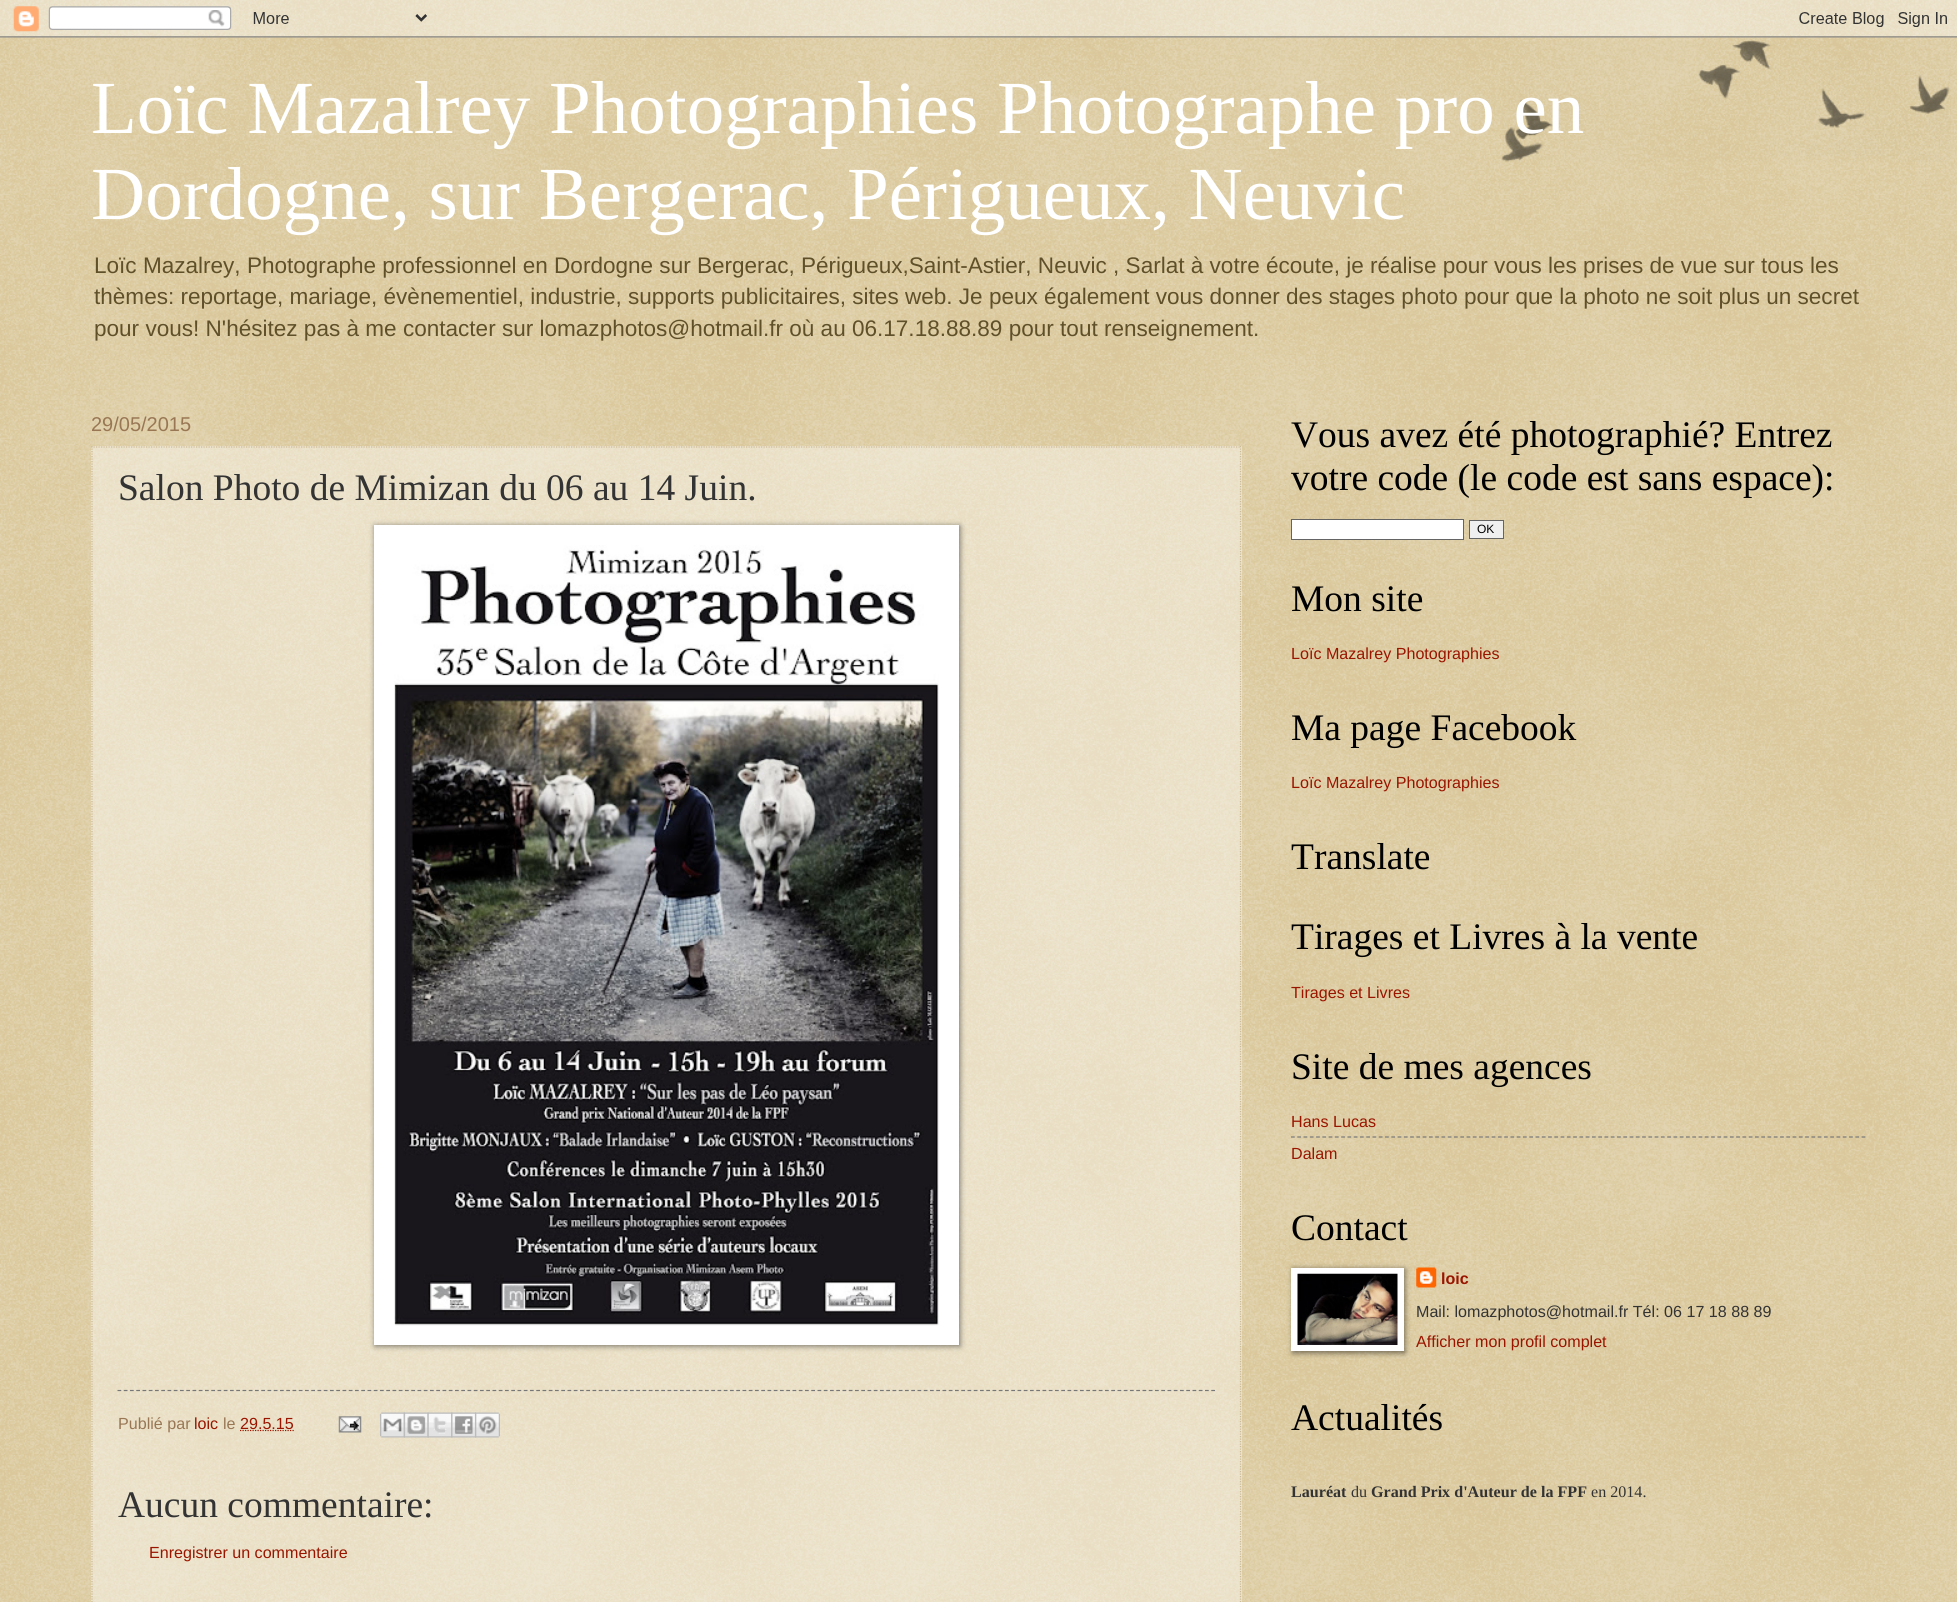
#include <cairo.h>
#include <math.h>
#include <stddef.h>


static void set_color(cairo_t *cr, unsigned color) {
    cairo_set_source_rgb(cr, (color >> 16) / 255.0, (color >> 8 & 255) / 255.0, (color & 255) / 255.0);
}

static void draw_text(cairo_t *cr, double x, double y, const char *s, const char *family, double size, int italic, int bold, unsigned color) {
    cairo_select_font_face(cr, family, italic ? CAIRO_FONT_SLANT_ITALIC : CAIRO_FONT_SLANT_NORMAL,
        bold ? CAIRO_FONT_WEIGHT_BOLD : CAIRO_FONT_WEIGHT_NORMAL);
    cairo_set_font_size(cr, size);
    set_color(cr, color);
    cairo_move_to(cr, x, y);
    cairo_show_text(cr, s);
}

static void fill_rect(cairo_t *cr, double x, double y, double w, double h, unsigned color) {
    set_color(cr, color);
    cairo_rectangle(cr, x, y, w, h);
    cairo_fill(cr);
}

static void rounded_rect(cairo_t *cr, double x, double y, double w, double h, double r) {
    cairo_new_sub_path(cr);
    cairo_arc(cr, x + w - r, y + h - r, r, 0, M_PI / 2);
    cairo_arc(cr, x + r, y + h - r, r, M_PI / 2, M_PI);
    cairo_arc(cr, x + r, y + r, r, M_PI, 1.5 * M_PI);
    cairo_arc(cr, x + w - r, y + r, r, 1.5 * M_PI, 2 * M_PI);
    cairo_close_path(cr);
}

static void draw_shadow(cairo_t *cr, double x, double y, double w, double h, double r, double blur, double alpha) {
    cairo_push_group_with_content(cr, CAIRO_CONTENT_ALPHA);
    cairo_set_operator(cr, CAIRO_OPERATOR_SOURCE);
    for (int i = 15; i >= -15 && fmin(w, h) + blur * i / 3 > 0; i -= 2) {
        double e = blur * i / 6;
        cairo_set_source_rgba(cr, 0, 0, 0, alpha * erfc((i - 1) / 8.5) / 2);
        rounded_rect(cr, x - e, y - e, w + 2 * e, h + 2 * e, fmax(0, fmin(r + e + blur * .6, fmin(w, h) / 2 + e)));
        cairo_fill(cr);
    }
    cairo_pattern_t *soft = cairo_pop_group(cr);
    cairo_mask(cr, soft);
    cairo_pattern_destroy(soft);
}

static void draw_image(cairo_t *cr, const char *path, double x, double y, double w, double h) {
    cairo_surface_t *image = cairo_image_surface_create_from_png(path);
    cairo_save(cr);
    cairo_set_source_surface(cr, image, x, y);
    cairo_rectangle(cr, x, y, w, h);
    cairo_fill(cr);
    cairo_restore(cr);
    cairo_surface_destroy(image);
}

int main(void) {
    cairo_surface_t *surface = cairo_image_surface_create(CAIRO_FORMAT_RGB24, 1957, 1602);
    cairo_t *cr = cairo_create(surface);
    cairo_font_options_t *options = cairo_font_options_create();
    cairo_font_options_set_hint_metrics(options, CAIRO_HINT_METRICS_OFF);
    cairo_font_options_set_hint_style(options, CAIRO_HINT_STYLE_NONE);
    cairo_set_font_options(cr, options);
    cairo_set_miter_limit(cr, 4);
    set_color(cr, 0xC0A154);
    cairo_paint(cr);
    draw_image(cr, "assets/img1.png", 0, 0, 1957, 1602);
    draw_image(cr, "assets/img2.png", 0, 0, 1957, 38);
    draw_image(cr, "assets/img3.png", 1501, 40, 450, 122);
    draw_text(cr, 91, 133, "Loïc Mazalrey Photographies Photographe pro en", "Liberation Serif", 75, 0, 0, 0xFFFFFF);
    draw_text(cr, 91, 219, "Dordogne, sur Bergerac, Périgueux, Neuvic", "Liberation Serif", 75, 0, 0, 0xFFFFFF);
    draw_text(cr, 94, 273, "Loïc Mazalrey, Photographe professionnel en Dordogne sur Bergerac, Périgueux,Saint-Astier, Neuvic , Sarlat à votre écoute, je réalise pour vous les prises de vue sur tous les", "Liberation Sans", 22.55, 0, 0, 0x60502A);
    draw_text(cr, 94, 304, "thèmes: reportage, mariage, évènementiel, industrie, supports publicitaires, sites web. Je peux également vous donner des stages photo pour que la photo ne soit plus un secret", "Liberation Sans", 22.55, 0, 0, 0x60502A);
    draw_text(cr, 94, 336, "pour vous! N'hésitez pas à me contacter sur lomazphotos@hotmail.fr où au 06.17.18.88.89 pour tout renseignement.", "Liberation Sans", 22.55, 0, 0, 0x60502A);
    draw_text(cr, 91, 431, "29/05/2015", "Liberation Sans", 20, 0, 0, 0x997755);
    cairo_set_source_rgba(cr, 1, 1, 1, 0.4);
    cairo_rectangle(cr, 91, 446, 1151, 1156);
    cairo_fill(cr);
    cairo_new_path(cr);
    cairo_move_to(cr, 91, 447);
    cairo_line_to(cr, 1241, 447);
    set_color(cr, 0xCCBB99);
    cairo_set_line_width(cr, 1.2);
    cairo_set_dash(cr, (double[]){1.25, 1.25}, 2, 0);
    cairo_stroke(cr);
    cairo_new_path(cr);
    cairo_move_to(cr, 1240.5, 446);
    cairo_line_to(cr, 1240.5, 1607.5);
    cairo_stroke(cr);
    cairo_new_path(cr);
    cairo_move_to(cr, 92, 446);
    cairo_line_to(cr, 92, 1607.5);
    cairo_stroke(cr);
    draw_text(cr, 118, 500, "Salon Photo de Mimizan du 06 au 14 Juin.", "Liberation Serif", 37.5, 0, 0, 0x333333);
    set_color(cr, 0x000000);
    draw_shadow(cr, 375, 526, 585, 820, 0, 3, 0.5);
    fill_rect(cr, 374, 525, 585, 820, 0xFFFFFF);
    draw_image(cr, "assets/img4.png", 394, 545, 545, 781);
    cairo_new_path(cr);
    cairo_move_to(cr, 117.5, 1390.5);
    cairo_line_to(cr, 1215, 1390.5);
    set_color(cr, 0x777777);
    cairo_set_dash(cr, (double[]){3.75, 2.5}, 2, 0);
    cairo_stroke(cr);
    draw_text(cr, 118, 1429, "Publié par", "Liberation Sans", 16.1, 0, 0, 0x997755);
    draw_text(cr, 194, 1429, "loic", "Liberation Sans", 16.1, 0, 0, 0x991500);
    draw_text(cr, 223, 1429, "le", "Liberation Sans", 16.1, 0, 0, 0x997755);
    cairo_new_path(cr);
    cairo_move_to(cr, 240, 1430.5);
    cairo_line_to(cr, 294, 1430.5);
    set_color(cr, 0x991500);
    cairo_set_dash(cr, (double[]){1.25, 1.25}, 2, 0);
    cairo_stroke(cr);
    draw_text(cr, 240, 1429, "29.5.15", "Liberation Sans", 16.1, 0, 0, 0x991500);
    draw_image(cr, "assets/img5.png", 338, 1416, 24, 17);
    draw_image(cr, "assets/img6.png", 380, 1412, 25, 26);
    draw_image(cr, "assets/img7.png", 403, 1412, 26, 26);
    draw_image(cr, "assets/img8.png", 427, 1412, 26, 26);
    draw_image(cr, "assets/img9.png", 451, 1412, 26, 26);
    draw_image(cr, "assets/img10.png", 475, 1412, 25, 26);
    draw_text(cr, 118, 1517, "Aucun commentaire:", "Liberation Serif", 37.5, 0, 0, 0x333333);
    draw_text(cr, 149, 1558, "Enregistrer un commentaire", "Liberation Sans", 16.1, 0, 0, 0x991500);
    draw_text(cr, 1291, 447, "Vous avez été photographié? Entrez", "Liberation Serif", 37.5, 0, 0, 0x000000);
    draw_text(cr, 1291, 490, "votre code (le code est sans espace):", "Liberation Serif", 37.5, 0, 0, 0x000000);
    set_color(cr, 0xFFFFFF);
    cairo_rectangle(cr, 1291.5, 519.5, 172, 20);
    cairo_fill_preserve(cr);
    set_color(cr, 0x646464);
    cairo_set_line_width(cr, 1);
    cairo_set_dash(cr, NULL, 0, 0);
    cairo_stroke(cr);
    set_color(cr, 0xEFEFEF);
    cairo_rectangle(cr, 1469.5, 520.5, 34, 18);
    cairo_fill_preserve(cr);
    set_color(cr, 0x646464);
    cairo_stroke(cr);
    draw_text(cr, 1477, 533, "OK", "Liberation Sans", 12, 0, 0, 0x000000);
    draw_text(cr, 1291, 611, "Mon site", "Liberation Serif", 37.5, 0, 0, 0x000000);
    draw_text(cr, 1291, 659, "Loïc Mazalrey Photographies", "Liberation Sans", 16.1, 0, 0, 0x991500);
    draw_text(cr, 1291, 740, "Ma page Facebook", "Liberation Serif", 37.5, 0, 0, 0x000000);
    draw_text(cr, 1291, 788, "Loïc Mazalrey Photographies", "Liberation Sans", 16.1, 0, 0, 0x991500);
    draw_text(cr, 1291, 869, "Translate", "Liberation Serif", 37.5, 0, 0, 0x000000);
    draw_text(cr, 1291, 949, "Tirages et Livres à la vente", "Liberation Serif", 37.5, 0, 0, 0x000000);
    draw_text(cr, 1291, 998, "Tirages et Livres", "Liberation Sans", 16.1, 0, 0, 0x991500);
    draw_text(cr, 1291, 1079, "Site de mes agences", "Liberation Serif", 37.5, 0, 0, 0x000000);
    draw_text(cr, 1291, 1127, "Hans Lucas", "Liberation Sans", 16.1, 0, 0, 0x991500);
    cairo_new_path(cr);
    cairo_move_to(cr, 1291, 1137);
    cairo_line_to(cr, 1866, 1137);
    set_color(cr, 0x777777);
    cairo_set_line_width(cr, 1.2);
    cairo_set_dash(cr, (double[]){3.75, 2.52}, 2, 0);
    cairo_stroke(cr);
    draw_text(cr, 1291, 1159, "Dalam", "Liberation Sans", 16.1, 0, 0, 0x991500);
    draw_text(cr, 1291, 1240, "Contact", "Liberation Serif", 37.5, 0, 0, 0x000000);
    set_color(cr, 0x000000);
    draw_shadow(cr, 1293, 1269, 112, 84, 0, 3, 0.5);
    fill_rect(cr, 1291, 1268, 113, 83, 0xFFFFFF);
    draw_image(cr, "assets/img11.png", 1297, 1273, 101, 72);
    draw_image(cr, "assets/img12.png", 1416, 1267, 21, 21);
    draw_text(cr, 1441, 1284, "loic", "Liberation Sans", 16.1, 0, 1, 0x991500);
    draw_text(cr, 1416, 1317, "Mail: lomazphotos@hotmail.fr Tél: 06 17 18 88 89", "Liberation Sans", 16.1, 0, 0, 0x333333);
    draw_text(cr, 1416, 1347, "Afficher mon profil complet", "Liberation Sans", 16.1, 0, 0, 0x991500);
    draw_text(cr, 1291, 1430, "Actualités", "Liberation Serif", 37.5, 0, 0, 0x000000);
    draw_text(cr, 1291, 1497, "Lauréat", "Liberation Serif", 16.1, 0, 1, 0x333333);
    draw_text(cr, 1351, 1497, "du", "Liberation Serif", 16.1, 0, 0, 0x333333);
    draw_text(cr, 1371, 1497, "Grand Prix d'Auteur de la FPF", "Liberation Serif", 16.1, 0, 1, 0x333333);
    draw_text(cr, 1591, 1497, "en 2014.", "Liberation Serif", 16.1, 0, 0, 0x333333);
    cairo_surface_write_to_png(surface, "output.png");
    cairo_font_options_destroy(options);
    cairo_destroy(cr);
    cairo_surface_destroy(surface);
    return 0;
}
